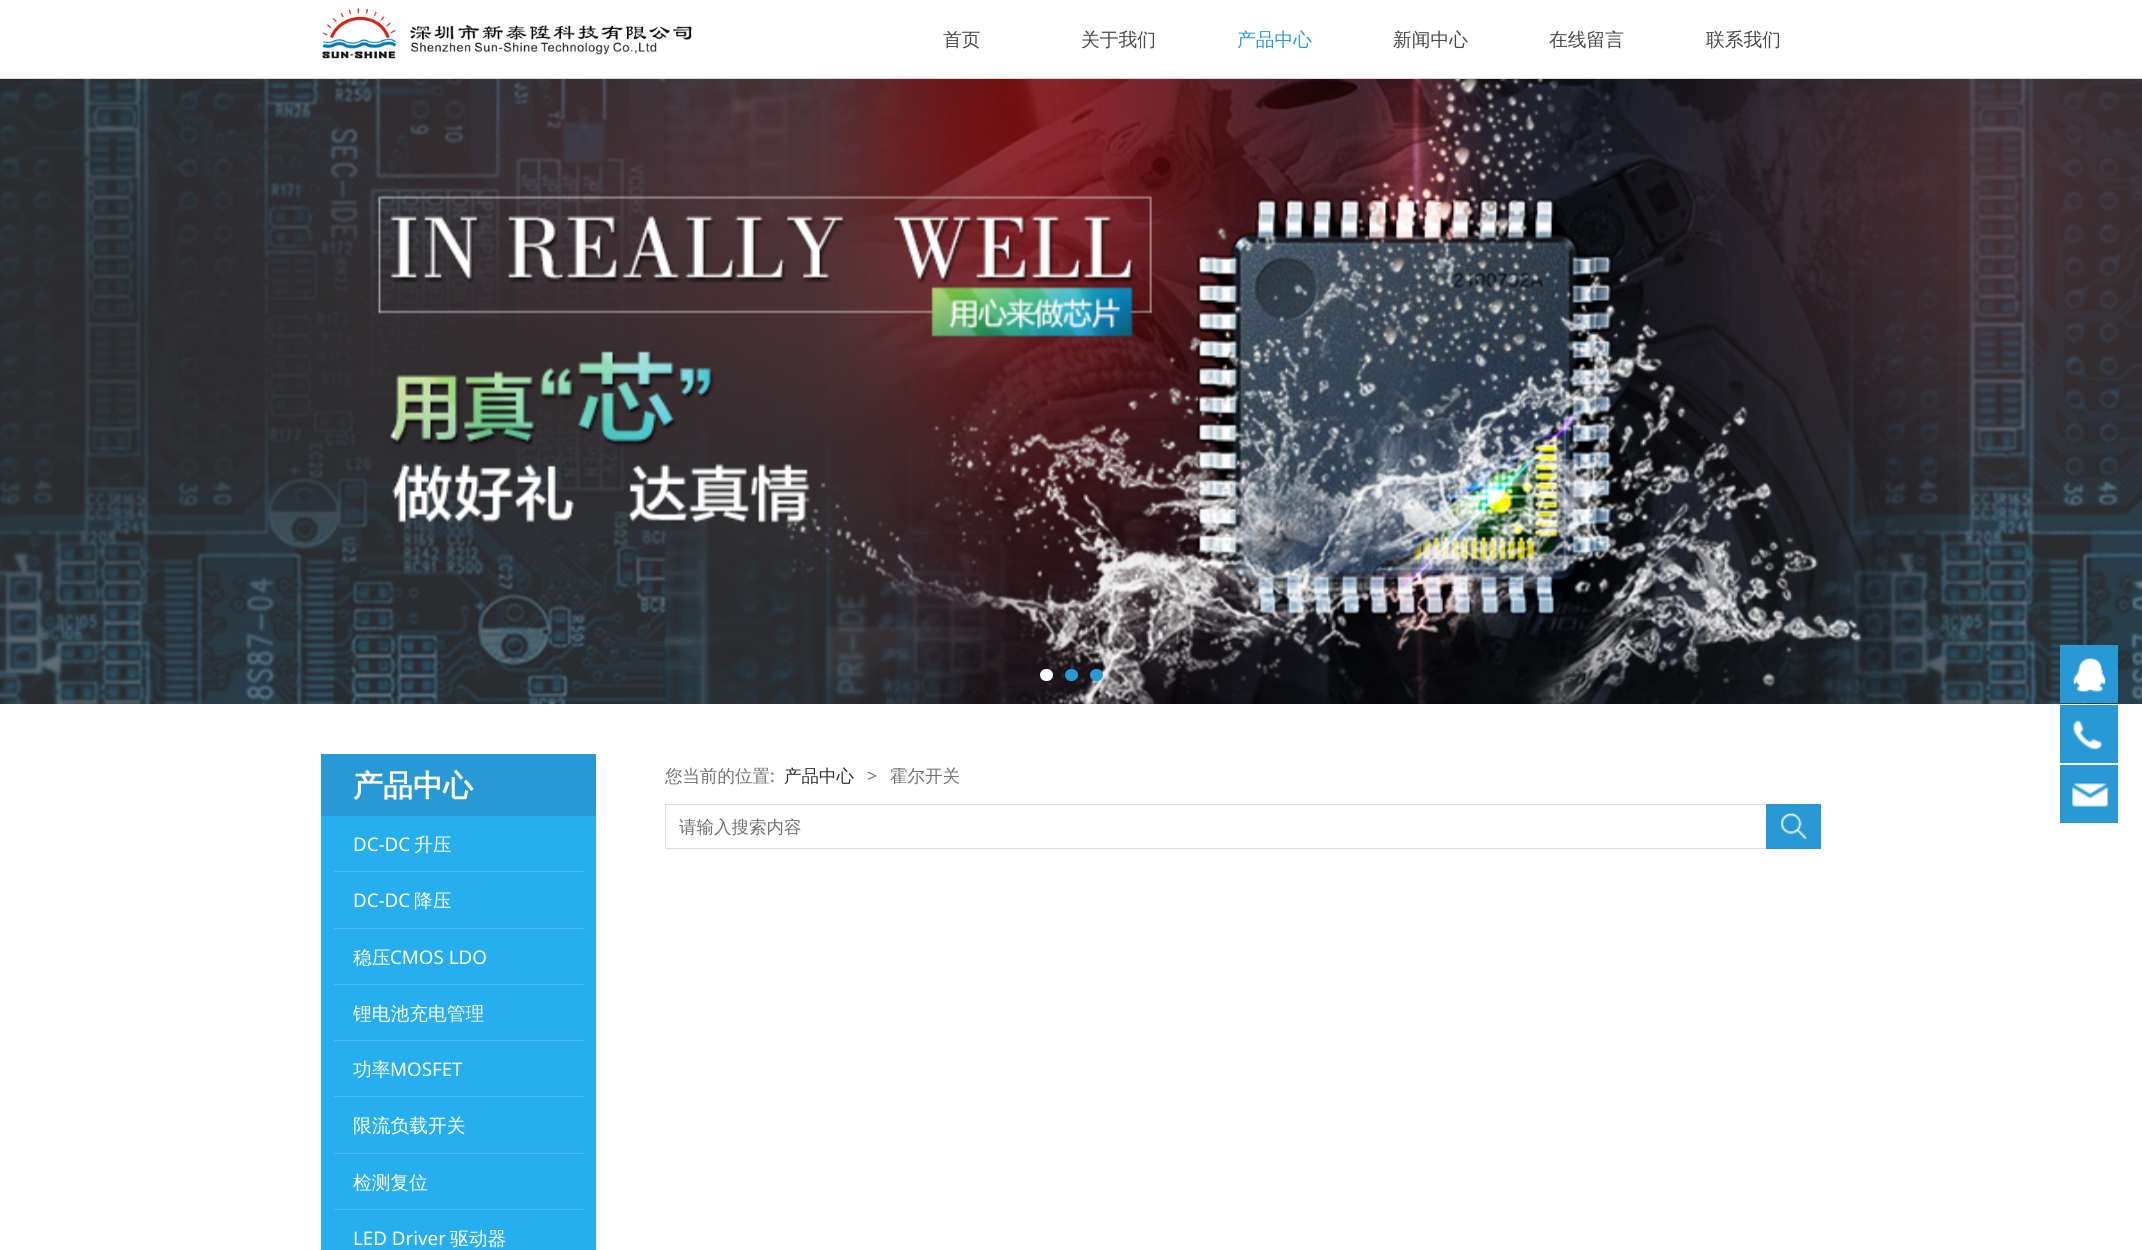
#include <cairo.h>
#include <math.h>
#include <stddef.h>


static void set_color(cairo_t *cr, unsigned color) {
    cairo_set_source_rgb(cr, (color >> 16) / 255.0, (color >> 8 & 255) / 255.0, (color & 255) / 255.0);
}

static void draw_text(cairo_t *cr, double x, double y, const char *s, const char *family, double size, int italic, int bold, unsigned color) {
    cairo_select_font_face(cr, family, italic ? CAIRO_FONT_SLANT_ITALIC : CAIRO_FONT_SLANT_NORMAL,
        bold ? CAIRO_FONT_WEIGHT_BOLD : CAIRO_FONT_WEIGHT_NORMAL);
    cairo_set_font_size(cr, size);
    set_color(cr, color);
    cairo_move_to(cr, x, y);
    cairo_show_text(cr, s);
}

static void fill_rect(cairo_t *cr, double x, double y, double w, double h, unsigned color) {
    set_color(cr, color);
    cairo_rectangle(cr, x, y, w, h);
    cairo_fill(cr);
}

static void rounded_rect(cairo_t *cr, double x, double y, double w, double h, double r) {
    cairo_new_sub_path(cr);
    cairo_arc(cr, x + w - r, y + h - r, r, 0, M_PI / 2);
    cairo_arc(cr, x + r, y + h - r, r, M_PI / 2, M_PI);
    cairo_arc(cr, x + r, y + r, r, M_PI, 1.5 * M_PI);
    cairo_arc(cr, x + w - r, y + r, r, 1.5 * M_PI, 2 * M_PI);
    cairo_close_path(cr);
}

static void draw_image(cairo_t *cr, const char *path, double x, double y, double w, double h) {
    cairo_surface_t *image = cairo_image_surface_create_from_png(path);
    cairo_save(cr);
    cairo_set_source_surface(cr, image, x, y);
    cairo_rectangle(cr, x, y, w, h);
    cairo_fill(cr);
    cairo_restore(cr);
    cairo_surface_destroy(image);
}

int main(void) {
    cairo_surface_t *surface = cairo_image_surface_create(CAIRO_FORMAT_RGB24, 2142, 1250);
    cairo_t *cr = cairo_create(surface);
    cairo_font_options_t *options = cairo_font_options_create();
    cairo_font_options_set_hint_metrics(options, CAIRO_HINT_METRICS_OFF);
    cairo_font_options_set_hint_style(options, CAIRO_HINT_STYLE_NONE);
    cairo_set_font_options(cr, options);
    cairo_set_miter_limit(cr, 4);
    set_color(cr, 0xFFFFFF);
    cairo_paint(cr);
    fill_rect(cr, 0, 78, 2142, 1, 0xD9D9D9);
    draw_image(cr, "assets/img1.png", 321, 6, 371, 53);
    draw_text(cr, 943, 46, "首页", "WenQuanYi Zen Hei Medium", 18.75, 0, 0, 0x494949);
    draw_text(cr, 1081, 46, "关于我们", "WenQuanYi Zen Hei Medium", 18.75, 0, 0, 0x494949);
    draw_text(cr, 1237, 46, "产品中心", "WenQuanYi Zen Hei Medium", 18.75, 0, 0, 0x2999D6);
    draw_text(cr, 1393, 46, "新闻中心", "WenQuanYi Zen Hei Medium", 18.75, 0, 0, 0x494949);
    draw_text(cr, 1549, 46, "在线留言", "WenQuanYi Zen Hei Medium", 18.75, 0, 0, 0x494949);
    draw_text(cr, 1706, 46, "联系我们", "WenQuanYi Zen Hei Medium", 18.75, 0, 0, 0x494949);
    draw_image(cr, "assets/img2.png", 0, 79, 2142, 625);
    set_color(cr, 0xFFFFFF);
    rounded_rect(cr, 1040, 669, 13, 12, 6);
    cairo_fill(cr);
    set_color(cr, 0x2999D6);
    rounded_rect(cr, 1065, 669, 13, 12, 6);
    cairo_fill(cr);
    rounded_rect(cr, 1090, 669, 13, 12, 6);
    cairo_fill(cr);
    fill_rect(cr, 2060, 645, 58, 58, 0x2999D6);
    draw_image(cr, "assets/img3.png", 2073, 658, 33, 34);
    fill_rect(cr, 2060, 705, 58, 58, 0x2999D6);
    draw_image(cr, "assets/img4.png", 2073, 720, 30, 30);
    fill_rect(cr, 2060, 765, 58, 58, 0x2999D6);
    draw_image(cr, "assets/img5.png", 2072, 783, 37, 24);
    fill_rect(cr, 321, 754, 275, 62, 0x2999D6);
    draw_text(cr, 353, 796, "产品中心", "WenQuanYi Zen Hei", 30, 0, 1, 0xFFFFFF);
    fill_rect(cr, 321, 816, 275, 434, 0x27AEEF);
    fill_rect(cr, 334, 871, 250, 1, 0x4BBBF1);
    draw_text(cr, 353, 851, "DC-DC", "Noto Sans", 18.75, 0, 0, 0xFFFFFF);
    draw_text(cr, 414, 851, "升压", "WenQuanYi Zen Hei Medium", 18.75, 0, 0, 0xFFFFFF);
    fill_rect(cr, 334, 928, 250, 1, 0x4BBBF1);
    draw_text(cr, 353, 907, "DC-DC", "Noto Sans", 18.75, 0, 0, 0xFFFFFF);
    draw_text(cr, 414, 907, "降压", "WenQuanYi Zen Hei Medium", 18.75, 0, 0, 0xFFFFFF);
    fill_rect(cr, 334, 984, 250, 1, 0x4BBBF1);
    draw_text(cr, 353, 964, "稳压", "WenQuanYi Zen Hei Medium", 18.75, 0, 0, 0xFFFFFF);
    draw_text(cr, 390, 964, "CMOS LDO", "Noto Sans", 18.75, 0, 0, 0xFFFFFF);
    fill_rect(cr, 334, 1040, 250, 1, 0x4BBBF1);
    draw_text(cr, 353, 1020, "锂电池充电管理", "WenQuanYi Zen Hei Medium", 18.75, 0, 0, 0xFFFFFF);
    fill_rect(cr, 334, 1096, 250, 1, 0x4BBBF1);
    draw_text(cr, 353, 1076, "功率", "WenQuanYi Zen Hei Medium", 18.75, 0, 0, 0xFFFFFF);
    draw_text(cr, 390, 1076, "MOSFET", "Noto Sans", 18.75, 0, 0, 0xFFFFFF);
    fill_rect(cr, 334, 1153, 250, 1, 0x4BBBF1);
    draw_text(cr, 353, 1132, "限流负载开关", "WenQuanYi Zen Hei Medium", 18.75, 0, 0, 0xFFFFFF);
    fill_rect(cr, 334, 1209, 250, 1, 0x4BBBF1);
    draw_text(cr, 353, 1189, "检测复位", "WenQuanYi Zen Hei Medium", 18.75, 0, 0, 0xFFFFFF);
    draw_text(cr, 353, 1245, "LED Driver", "Noto Sans", 18.75, 0, 0, 0xFFFFFF);
    draw_text(cr, 450, 1245, "驱动器", "WenQuanYi Zen Hei Medium", 18.75, 0, 0, 0xFFFFFF);
    draw_text(cr, 665, 782, "您当前的位置", "WenQuanYi Zen Hei Medium", 17.5, 0, 0, 0x717171);
    draw_text(cr, 770, 782, ":", "Noto Sans", 17.5, 0, 0, 0x717171);
    draw_text(cr, 784, 782, "产品中心", "WenQuanYi Zen Hei Medium", 17.5, 0, 0, 0x2F2F2F);
    draw_text(cr, 867, 782, ">", "Noto Sans", 17.5, 0, 0, 0x717171);
    draw_text(cr, 890, 782, "霍尔开关", "WenQuanYi Zen Hei Medium", 17.5, 0, 0, 0x717171);
    cairo_rectangle(cr, 665.5, 804.5, 1155, 44);
    set_color(cr, 0xDDDDDD);
    cairo_set_line_width(cr, 1);
    cairo_stroke(cr);
    draw_text(cr, 679, 833, "请输入搜索内容", "WenQuanYi Zen Hei Medium", 17.5, 0, 0, 0x717171);
    fill_rect(cr, 1766, 804, 55, 45, 0x2999D6);
    draw_image(cr, "assets/img6.png", 1781, 813, 26, 26);
    cairo_surface_write_to_png(surface, "output.png");
    cairo_font_options_destroy(options);
    cairo_destroy(cr);
    cairo_surface_destroy(surface);
    return 0;
}
